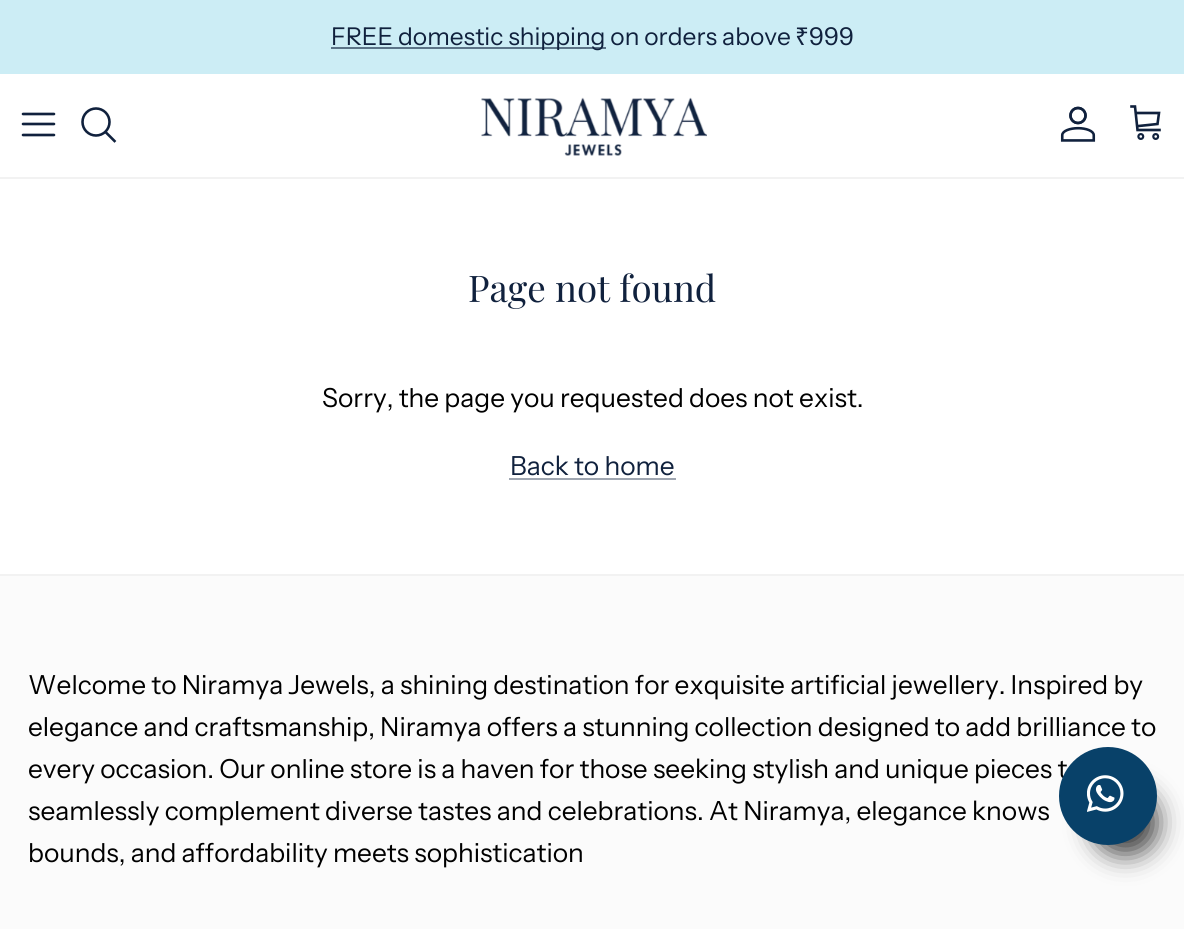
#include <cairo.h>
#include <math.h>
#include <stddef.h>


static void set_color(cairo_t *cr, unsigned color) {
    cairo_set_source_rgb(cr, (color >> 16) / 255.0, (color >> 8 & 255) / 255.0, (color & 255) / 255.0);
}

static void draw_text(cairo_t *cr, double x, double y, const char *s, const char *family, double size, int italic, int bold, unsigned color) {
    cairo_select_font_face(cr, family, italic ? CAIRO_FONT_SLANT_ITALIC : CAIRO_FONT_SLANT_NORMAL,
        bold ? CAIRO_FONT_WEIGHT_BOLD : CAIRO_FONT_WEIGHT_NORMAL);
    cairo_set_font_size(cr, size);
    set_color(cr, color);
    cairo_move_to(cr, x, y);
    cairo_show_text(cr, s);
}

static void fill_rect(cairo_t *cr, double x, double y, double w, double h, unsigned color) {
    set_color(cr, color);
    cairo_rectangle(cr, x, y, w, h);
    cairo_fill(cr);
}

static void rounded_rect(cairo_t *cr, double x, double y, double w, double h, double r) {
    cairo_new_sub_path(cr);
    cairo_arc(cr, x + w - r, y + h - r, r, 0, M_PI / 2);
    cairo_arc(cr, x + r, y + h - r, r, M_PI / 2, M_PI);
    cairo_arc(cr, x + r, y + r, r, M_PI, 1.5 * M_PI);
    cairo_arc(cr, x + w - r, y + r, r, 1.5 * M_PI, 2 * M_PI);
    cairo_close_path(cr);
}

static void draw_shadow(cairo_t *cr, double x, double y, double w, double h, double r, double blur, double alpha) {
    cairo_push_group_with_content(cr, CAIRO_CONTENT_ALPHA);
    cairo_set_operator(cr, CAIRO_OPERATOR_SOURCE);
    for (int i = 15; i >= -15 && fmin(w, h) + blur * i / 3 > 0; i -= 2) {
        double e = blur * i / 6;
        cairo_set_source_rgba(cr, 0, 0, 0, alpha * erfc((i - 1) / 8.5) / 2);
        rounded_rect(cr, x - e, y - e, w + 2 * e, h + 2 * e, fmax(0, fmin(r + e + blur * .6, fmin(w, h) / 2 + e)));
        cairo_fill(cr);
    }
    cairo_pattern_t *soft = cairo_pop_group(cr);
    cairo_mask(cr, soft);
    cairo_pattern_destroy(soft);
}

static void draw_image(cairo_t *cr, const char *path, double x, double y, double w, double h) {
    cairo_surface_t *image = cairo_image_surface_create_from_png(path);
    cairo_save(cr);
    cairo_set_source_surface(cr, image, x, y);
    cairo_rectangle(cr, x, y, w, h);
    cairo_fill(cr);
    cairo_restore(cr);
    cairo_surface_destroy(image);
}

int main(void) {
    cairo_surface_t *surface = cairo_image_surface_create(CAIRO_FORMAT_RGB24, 1184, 929);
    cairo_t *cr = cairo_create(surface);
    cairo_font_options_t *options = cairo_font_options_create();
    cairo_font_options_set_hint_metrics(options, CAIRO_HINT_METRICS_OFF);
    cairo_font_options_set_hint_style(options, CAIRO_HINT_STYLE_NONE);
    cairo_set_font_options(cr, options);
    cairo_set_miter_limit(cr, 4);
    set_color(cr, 0xFFFFFF);
    cairo_paint(cr);
    fill_rect(cr, 0, 0, 1184, 74, 0xCCEDF5);
    fill_rect(cr, 331, 47, 275, 2, 0x5B7387);
    draw_text(cr, 331, 45, "FREE domestic shipping on orders above", "Instrument Sans", 24.5, 0, 0, 0x10213D);
    draw_text(cr, 795, 45, "₹", "Noto Sans", 24.5, 0, 0, 0x10213D);
    draw_text(cr, 809, 45, "999", "Instrument Sans", 24.5, 0, 0, 0x10213D);
    fill_rect(cr, 0, 177, 1184, 2, 0xF2F2F2);
    cairo_new_path(cr);
    cairo_move_to(cr, 23, 124);
    cairo_line_to(cr, 54, 124);
    cairo_move_to(cr, 23, 114);
    cairo_line_to(cr, 54, 114);
    cairo_move_to(cr, 23, 135);
    cairo_line_to(cr, 54, 135);
    set_color(cr, 0x10213D);
    cairo_set_line_width(cr, 2.6);
    cairo_set_line_cap(cr, CAIRO_LINE_CAP_ROUND);
    cairo_set_line_join(cr, CAIRO_LINE_JOIN_ROUND);
    cairo_stroke(cr);
    cairo_arc(cr, 96, 122, 13.5, 0, 2 * M_PI);
    cairo_set_line_cap(cr, CAIRO_LINE_CAP_BUTT);
    cairo_set_line_join(cr, CAIRO_LINE_JOIN_MITER);
    cairo_stroke(cr);
    cairo_new_path(cr);
    cairo_move_to(cr, 106.5, 133);
    cairo_line_to(cr, 114.5, 141);
    cairo_set_line_cap(cr, CAIRO_LINE_CAP_SQUARE);
    cairo_stroke(cr);
    draw_image(cr, "assets/img1.png", 481, 97, 226, 59);
    draw_image(cr, "assets/img2.png", 1060, 106, 36, 36);
    cairo_new_path(cr);
    cairo_move_to(cr, 1131.5, 106.5);
    cairo_line_to(cr, 1135, 106.5);
    cairo_line_to(cr, 1137.5, 130);
    cairo_line_to(cr, 1159.5, 130);
    cairo_move_to(cr, 1136, 113);
    cairo_line_to(cr, 1159, 113);
    cairo_line_to(cr, 1157.5, 124);
    cairo_line_to(cr, 1138.5, 126);
    cairo_stroke(cr);
    cairo_arc(cr, 1140.8, 136.5, 2.4, 0, 2 * M_PI);
    cairo_set_line_width(cr, 2.2);
    cairo_set_line_cap(cr, CAIRO_LINE_CAP_BUTT);
    cairo_stroke(cr);
    cairo_arc(cr, 1155.7, 136.5, 2.4, 0, 2 * M_PI);
    cairo_stroke(cr);
    draw_text(cr, 468, 302, "Page not found", "Playfair Display", 36.75, 0, 0, 0x10213D);
    draw_text(cr, 322, 407, "Sorry, the page you requested does not exist.", "Instrument Sans", 26.25, 0, 0, 0x000000);
    draw_text(cr, 510, 475, "Back to home", "Instrument Sans", 26.25, 0, 0, 0x10213D);
    fill_rect(cr, 509, 478, 167, 2, 0x9FA6B1);
    fill_rect(cr, 0, 576, 1184, 353, 0xFBFBFB);
    fill_rect(cr, 0, 574, 1184, 2, 0xF2F2F2);
    draw_text(cr, 28, 694, "Welcome to Niramya Jewels, a shining destination for exquisite artificial jewellery. Inspired by", "Instrument Sans", 26.25, 0, 0, 0x000000);
    draw_text(cr, 28, 736, "elegance and craftsmanship, Niramya offers a stunning collection designed to add brilliance to", "Instrument Sans", 26.25, 0, 0, 0x000000);
    draw_text(cr, 28, 778, "every occasion. Our online store is a haven for those seeking stylish and unique pieces t", "Instrument Sans", 26.25, 0, 0, 0x000000);
    draw_text(cr, 28, 820, "seamlessly complement diverse tastes and celebrations. At Niramya, elegance knows", "Instrument Sans", 26.25, 0, 0, 0x000000);
    draw_text(cr, 28, 862, "bounds, and affordability meets sophistication", "Instrument Sans", 26.25, 0, 0, 0x000000);
    set_color(cr, 0x000000);
    draw_shadow(cr, 1094, 791, 63, 63, 31.5, 13, 0.75);
    set_color(cr, 0x084169);
    cairo_arc(cr, 1108, 796, 49, 0, 2 * M_PI);
    cairo_fill(cr);
    draw_image(cr, "assets/img3.png", 1087, 775, 37, 37);
    cairo_surface_write_to_png(surface, "output.png");
    cairo_font_options_destroy(options);
    cairo_destroy(cr);
    cairo_surface_destroy(surface);
    return 0;
}
